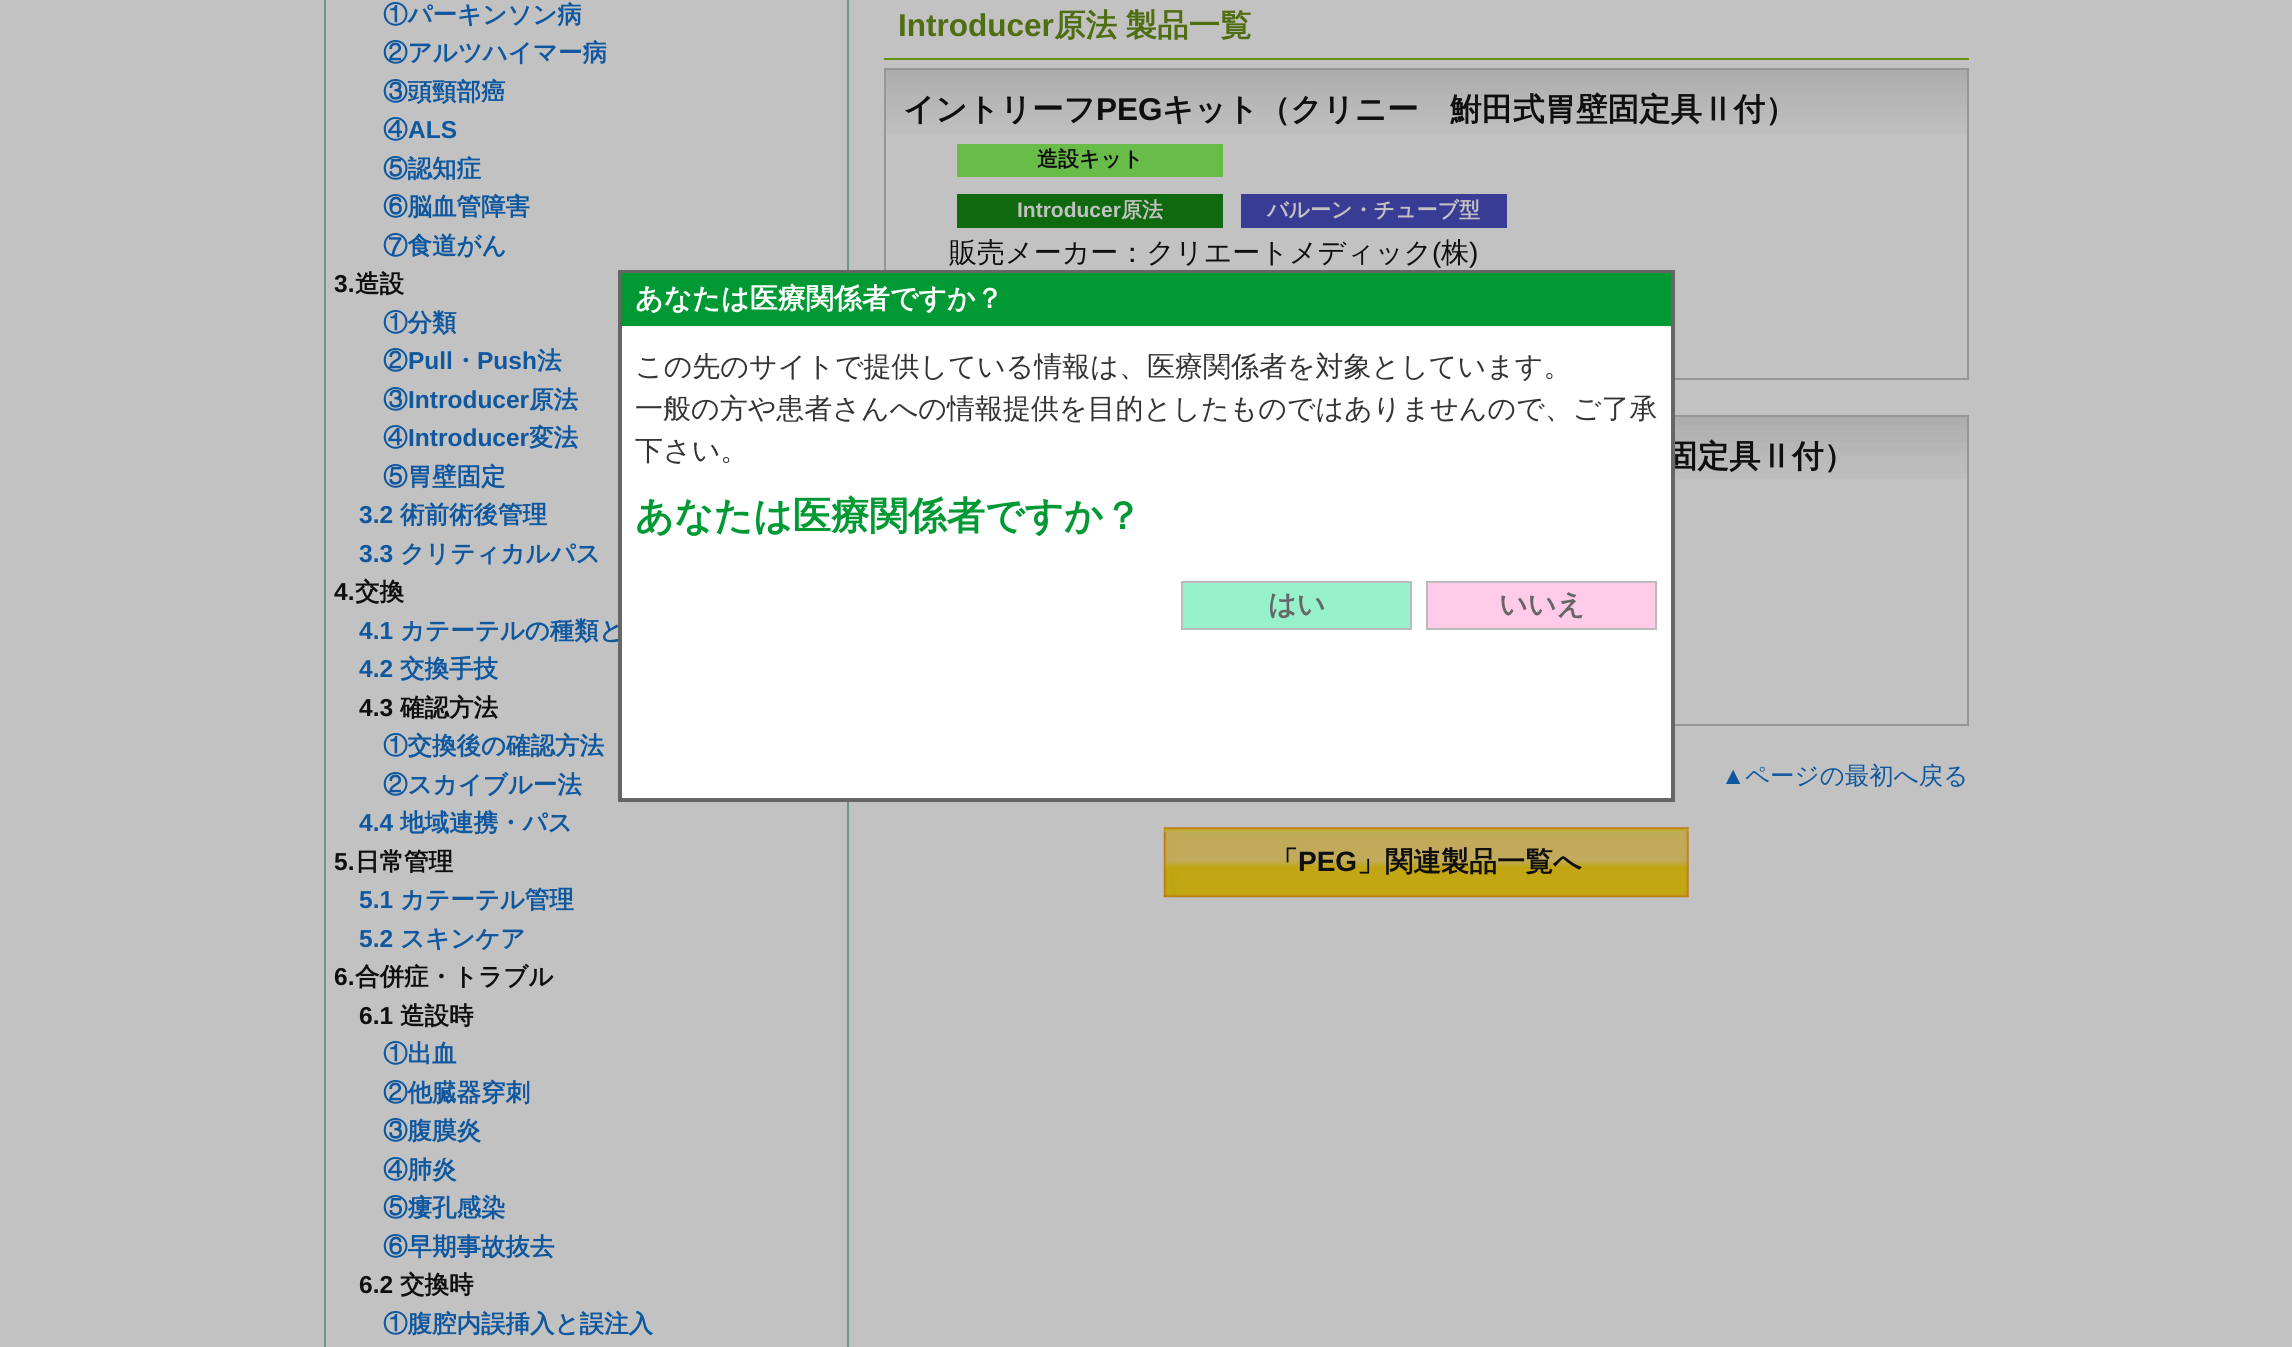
#include <cairo.h>
#include <math.h>
#include <stddef.h>


static void set_color(cairo_t *cr, unsigned color) {
    cairo_set_source_rgb(cr, (color >> 16) / 255.0, (color >> 8 & 255) / 255.0, (color & 255) / 255.0);
}

static void draw_text(cairo_t *cr, double x, double y, const char *s, const char *family, double size, int italic, int bold, unsigned color) {
    cairo_select_font_face(cr, family, italic ? CAIRO_FONT_SLANT_ITALIC : CAIRO_FONT_SLANT_NORMAL,
        bold ? CAIRO_FONT_WEIGHT_BOLD : CAIRO_FONT_WEIGHT_NORMAL);
    cairo_set_font_size(cr, size);
    set_color(cr, color);
    cairo_move_to(cr, x, y);
    cairo_show_text(cr, s);
}

static void draw_spaced(cairo_t *cr, double x, double y, const char *s, double letter, double word) {
    cairo_move_to(cr, x, y);
    while (*s) {
        char ch[5] = {0};
        int n = 0;
        do ch[n++] = *s++; while ((*s & 0xC0) == 0x80);
        cairo_show_text(cr, ch);
        cairo_rel_move_to(cr, letter + word * (*ch == ' '), 0);
    }
}

static void fill_rect(cairo_t *cr, double x, double y, double w, double h, unsigned color) {
    set_color(cr, color);
    cairo_rectangle(cr, x, y, w, h);
    cairo_fill(cr);
}

static void draw_image(cairo_t *cr, const char *path, double x, double y, double w, double h) {
    cairo_surface_t *image = cairo_image_surface_create_from_png(path);
    cairo_save(cr);
    cairo_set_source_surface(cr, image, x, y);
    cairo_rectangle(cr, x, y, w, h);
    cairo_fill(cr);
    cairo_restore(cr);
    cairo_surface_destroy(image);
}

int main(void) {
    cairo_surface_t *surface = cairo_image_surface_create(CAIRO_FORMAT_RGB24, 2292, 1347);
    cairo_t *cr = cairo_create(surface);
    cairo_font_options_t *options = cairo_font_options_create();
    cairo_font_options_set_hint_metrics(options, CAIRO_HINT_METRICS_OFF);
    cairo_font_options_set_hint_style(options, CAIRO_HINT_STYLE_NONE);
    cairo_set_font_options(cr, options);
    cairo_set_miter_limit(cr, 4);
    set_color(cr, 0xC2C2C2);
    cairo_paint(cr);
    cairo_rectangle(cr, 325, -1, 523, 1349);
    set_color(cr, 0x6E9786);
    cairo_stroke(cr);
    draw_text(cr, 383, 23, "①パーキンソン病", "WenQuanYi Zen Hei", 24.5, 0, 1, 0x0F579E);
    draw_text(cr, 383, 61, "②アルツハイマー病", "WenQuanYi Zen Hei", 24.5, 0, 1, 0x0F579E);
    draw_text(cr, 383, 100, "③頭頸部癌", "WenQuanYi Zen Hei", 24.5, 0, 1, 0x0F579E);
    draw_text(cr, 383, 138, "④", "WenQuanYi Zen Hei", 24.5, 0, 1, 0x0F579E);
    draw_text(cr, 408, 138, "ALS", "Liberation Sans", 24.5, 0, 1, 0x0F579E);
    draw_text(cr, 383, 177, "⑤認知症", "WenQuanYi Zen Hei", 24.5, 0, 1, 0x0F579E);
    draw_text(cr, 383, 215, "⑥脳血管障害", "WenQuanYi Zen Hei", 24.5, 0, 1, 0x0F579E);
    draw_text(cr, 383, 254, "⑦食道がん", "WenQuanYi Zen Hei", 24.5, 0, 1, 0x0F579E);
    draw_text(cr, 334, 292, "3.", "Liberation Sans", 24.5, 0, 1, 0x0F0F0F);
    draw_text(cr, 355, 292, "造設", "WenQuanYi Zen Hei", 24.5, 0, 1, 0x0F0F0F);
    draw_text(cr, 383, 331, "①分類", "WenQuanYi Zen Hei", 24.5, 0, 1, 0x0F579E);
    draw_text(cr, 383, 369, "②", "WenQuanYi Zen Hei", 24.5, 0, 1, 0x0F579E);
    draw_text(cr, 408, 369, "Pull", "Liberation Sans", 24.5, 0, 1, 0x0F579E);
    draw_text(cr, 453, 369, "・", "WenQuanYi Zen Hei", 24.5, 0, 1, 0x0F579E);
    draw_text(cr, 477, 369, "Push", "Liberation Sans", 24.5, 0, 1, 0x0F579E);
    draw_text(cr, 537, 369, "法", "WenQuanYi Zen Hei", 24.5, 0, 1, 0x0F579E);
    draw_text(cr, 383, 408, "③", "WenQuanYi Zen Hei", 24.5, 0, 1, 0x0F579E);
    draw_text(cr, 408, 408, "Introducer", "Liberation Sans", 24.5, 0, 1, 0x0F579E);
    draw_text(cr, 529, 408, "原法", "WenQuanYi Zen Hei", 24.5, 0, 1, 0x0F579E);
    draw_text(cr, 383, 446, "④", "WenQuanYi Zen Hei", 24.5, 0, 1, 0x0F579E);
    draw_text(cr, 408, 446, "Introducer", "Liberation Sans", 24.5, 0, 1, 0x0F579E);
    draw_text(cr, 529, 446, "変法", "WenQuanYi Zen Hei", 24.5, 0, 1, 0x0F579E);
    draw_text(cr, 383, 485, "⑤胃壁固定", "WenQuanYi Zen Hei", 24.5, 0, 1, 0x0F579E);
    draw_text(cr, 359, 523, "3.2", "Liberation Sans", 24.5, 0, 1, 0x0F579E);
    draw_text(cr, 400, 523, "術前術後管理", "WenQuanYi Zen Hei", 24.5, 0, 1, 0x0F579E);
    draw_text(cr, 359, 562, "3.3", "Liberation Sans", 24.5, 0, 1, 0x0F579E);
    draw_text(cr, 400, 562, "クリティカルパス", "WenQuanYi Zen Hei", 24.5, 0, 1, 0x0F579E);
    draw_text(cr, 334, 600, "4.", "Liberation Sans", 24.5, 0, 1, 0x0F0F0F);
    draw_text(cr, 355, 600, "交換", "WenQuanYi Zen Hei", 24.5, 0, 1, 0x0F0F0F);
    draw_text(cr, 359, 639, "4.1", "Liberation Sans", 24.5, 0, 1, 0x0F579E);
    draw_text(cr, 400, 639, "カテーテルの種類と", "WenQuanYi Zen Hei", 24.5, 0, 1, 0x0F579E);
    draw_text(cr, 359, 677, "4.2", "Liberation Sans", 24.5, 0, 1, 0x0F579E);
    draw_text(cr, 400, 677, "交換手技", "WenQuanYi Zen Hei", 24.5, 0, 1, 0x0F579E);
    draw_text(cr, 359, 716, "4.3", "Liberation Sans", 24.5, 0, 1, 0x0F0F0F);
    draw_text(cr, 400, 716, "確認方法", "WenQuanYi Zen Hei", 24.5, 0, 1, 0x0F0F0F);
    draw_text(cr, 383, 754, "①交換後の確認方法", "WenQuanYi Zen Hei", 24.5, 0, 1, 0x0F579E);
    draw_text(cr, 383, 793, "②スカイブルー法", "WenQuanYi Zen Hei", 24.5, 0, 1, 0x0F579E);
    draw_text(cr, 359, 831, "4.4", "Liberation Sans", 24.5, 0, 1, 0x0F579E);
    draw_text(cr, 400, 831, "地域連携・パス", "WenQuanYi Zen Hei", 24.5, 0, 1, 0x0F579E);
    draw_text(cr, 334, 870, "5.", "Liberation Sans", 24.5, 0, 1, 0x0F0F0F);
    draw_text(cr, 355, 870, "日常管理", "WenQuanYi Zen Hei", 24.5, 0, 1, 0x0F0F0F);
    draw_text(cr, 359, 908, "5.1", "Liberation Sans", 24.5, 0, 1, 0x0F579E);
    draw_text(cr, 400, 908, "カテーテル管理", "WenQuanYi Zen Hei", 24.5, 0, 1, 0x0F579E);
    draw_text(cr, 359, 947, "5.2", "Liberation Sans", 24.5, 0, 1, 0x0F579E);
    draw_text(cr, 400, 947, "スキンケア", "WenQuanYi Zen Hei", 24.5, 0, 1, 0x0F579E);
    draw_text(cr, 334, 985, "6.", "Liberation Sans", 24.5, 0, 1, 0x0F0F0F);
    draw_text(cr, 355, 985, "合併症・トラブル", "WenQuanYi Zen Hei", 24.5, 0, 1, 0x0F0F0F);
    draw_text(cr, 359, 1024, "6.1", "Liberation Sans", 24.5, 0, 1, 0x0F0F0F);
    draw_text(cr, 400, 1024, "造設時", "WenQuanYi Zen Hei", 24.5, 0, 1, 0x0F0F0F);
    draw_text(cr, 383, 1062, "①出血", "WenQuanYi Zen Hei", 24.5, 0, 1, 0x0F579E);
    draw_text(cr, 383, 1101, "②他臓器穿刺", "WenQuanYi Zen Hei", 24.5, 0, 1, 0x0F579E);
    draw_text(cr, 383, 1139, "③腹膜炎", "WenQuanYi Zen Hei", 24.5, 0, 1, 0x0F579E);
    draw_text(cr, 383, 1178, "④肺炎", "WenQuanYi Zen Hei", 24.5, 0, 1, 0x0F579E);
    draw_text(cr, 383, 1216, "⑤瘻孔感染", "WenQuanYi Zen Hei", 24.5, 0, 1, 0x0F579E);
    draw_text(cr, 383, 1255, "⑥早期事故抜去", "WenQuanYi Zen Hei", 24.5, 0, 1, 0x0F579E);
    draw_text(cr, 359, 1293, "6.2", "Liberation Sans", 24.5, 0, 1, 0x0F0F0F);
    draw_text(cr, 400, 1293, "交換時", "WenQuanYi Zen Hei", 24.5, 0, 1, 0x0F0F0F);
    draw_text(cr, 383, 1332, "①腹腔内誤挿入と誤注入", "WenQuanYi Zen Hei", 24.5, 0, 1, 0x0F579E);
    fill_rect(cr, 884, 58, 1085, 2, 0x679211);
    draw_text(cr, 898, 36, "Introducer", "Liberation Sans", 31.5, 0, 1, 0x4F6D11);
    cairo_select_font_face(cr, "WenQuanYi Zen Hei", CAIRO_FONT_SLANT_NORMAL, CAIRO_FONT_WEIGHT_BOLD);
    draw_spaced(cr, 1054, 36, "原法 製品一覧", 0, -1);
    draw_image(cr, "assets/img1.png", 886, 70, 1081, 63);
    cairo_rectangle(cr, 885, 69, 1083, 310);
    set_color(cr, 0x969696);
    cairo_stroke(cr);
    draw_text(cr, 903, 120, "イントリーフ", "WenQuanYi Zen Hei", 31.5, 0, 1, 0x0F0F0F);
    draw_text(cr, 1096, 120, "PEG", "Liberation Sans", 31.5, 0, 1, 0x0F0F0F);
    draw_text(cr, 1162, 120, "キット（クリニー　鮒田式胃壁固定具Ⅱ付）", "WenQuanYi Zen Hei", 31.5, 0, 1, 0x0F0F0F);
    fill_rect(cr, 957, 144, 266, 33, 0x69BC48);
    draw_text(cr, 1037, 166, "造設キット", "WenQuanYi Zen Hei", 21, 0, 1, 0x0F0F0F);
    fill_rect(cr, 957, 194, 266, 34, 0x0F690F);
    draw_text(cr, 1017, 217, "Introducer", "Liberation Sans", 21, 0, 1, 0xC2C2C2);
    draw_text(cr, 1121, 217, "原法", "WenQuanYi Zen Hei", 21, 0, 1, 0xC2C2C2);
    fill_rect(cr, 1241, 194, 266, 34, 0x393C94);
    draw_text(cr, 1267, 217, "バルーン・チューブ型", "WenQuanYi Zen Hei", 21, 0, 1, 0xC2C2C2);
    draw_text(cr, 949, 262, "販売メーカー：クリエートメディック", "WenQuanYi Zen Hei Medium", 28, 0, 0, 0x0F0F0F);
    draw_text(cr, 1432, 262, "(", "Liberation Sans", 28, 0, 0, 0x0F0F0F);
    draw_text(cr, 1441, 262, "株", "WenQuanYi Zen Hei Medium", 28, 0, 0, 0x0F0F0F);
    draw_text(cr, 1469, 262, ")", "Liberation Sans", 28, 0, 0, 0x0F0F0F);
    draw_image(cr, "assets/img2.png", 1675, 417, 292, 62);
    cairo_rectangle(cr, 885, 416, 1083, 309);
    set_color(cr, 0x969696);
    cairo_stroke(cr);
    draw_text(cr, 1666, 467, "固定具Ⅱ付）", "WenQuanYi Zen Hei", 31.5, 0, 1, 0x0F0F0F);
    draw_text(cr, 1721, 784, "▲", "Liberation Sans", 24.5, 0, 0, 0x0F579E);
    draw_text(cr, 1745, 784, "ページの最初へ戻る", "WenQuanYi Zen Hei Medium", 24.5, 0, 0, 0x0F579E);
    draw_image(cr, "assets/img3.png", 1163, 827, 526, 71);
    draw_text(cr, 1270, 871, "「", "WenQuanYi Zen Hei", 28, 0, 1, 0x0F0F0F);
    draw_text(cr, 1298, 871, "PEG", "Liberation Sans", 28, 0, 1, 0x0F0F0F);
    draw_text(cr, 1357, 871, "」関連製品一覧へ", "WenQuanYi Zen Hei", 28, 0, 1, 0x0F0F0F);
    fill_rect(cr, 622, 326, 1049, 472, 0xFFFFFF);
    cairo_rectangle(cr, 620, 272, 1053, 528);
    set_color(cr, 0x666666);
    cairo_set_line_width(cr, 4);
    cairo_stroke(cr);
    fill_rect(cr, 621, 273, 1050, 53, 0x009933);
    draw_text(cr, 635, 308, "あなたは医療関係者ですか？", "WenQuanYi Zen Hei", 28, 0, 1, 0xFFFFFF);
    draw_text(cr, 635, 376, "この先のサイトで提供している情報は、医療関係者を対象としています。", "WenQuanYi Zen Hei Medium", 28, 0, 0, 0x333333);
    draw_text(cr, 635, 418, "一般の方や患者さんへの情報提供を目的としたものではありませんので、ご了承", "WenQuanYi Zen Hei Medium", 28, 0, 0, 0x333333);
    draw_text(cr, 635, 460, "下さい。", "WenQuanYi Zen Hei Medium", 28, 0, 0, 0x333333);
    draw_text(cr, 635, 529, "あなたは医療関係者ですか？", "WenQuanYi Zen Hei", 38.5, 0, 1, 0x009933);
    set_color(cr, 0x97F1CB);
    cairo_rectangle(cr, 1182, 582, 229, 47);
    cairo_fill_preserve(cr);
    set_color(cr, 0xBBBBBB);
    cairo_set_line_width(cr, 2);
    cairo_stroke(cr);
    draw_text(cr, 1268, 614, "はい", "WenQuanYi Zen Hei", 28, 0, 1, 0x666666);
    set_color(cr, 0xFFCBE9);
    cairo_rectangle(cr, 1427, 582, 229, 47);
    cairo_fill_preserve(cr);
    set_color(cr, 0xBBBBBB);
    cairo_stroke(cr);
    draw_text(cr, 1499, 614, "いいえ", "WenQuanYi Zen Hei", 28, 0, 1, 0x666666);
    cairo_surface_write_to_png(surface, "output.png");
    cairo_font_options_destroy(options);
    cairo_destroy(cr);
    cairo_surface_destroy(surface);
    return 0;
}
